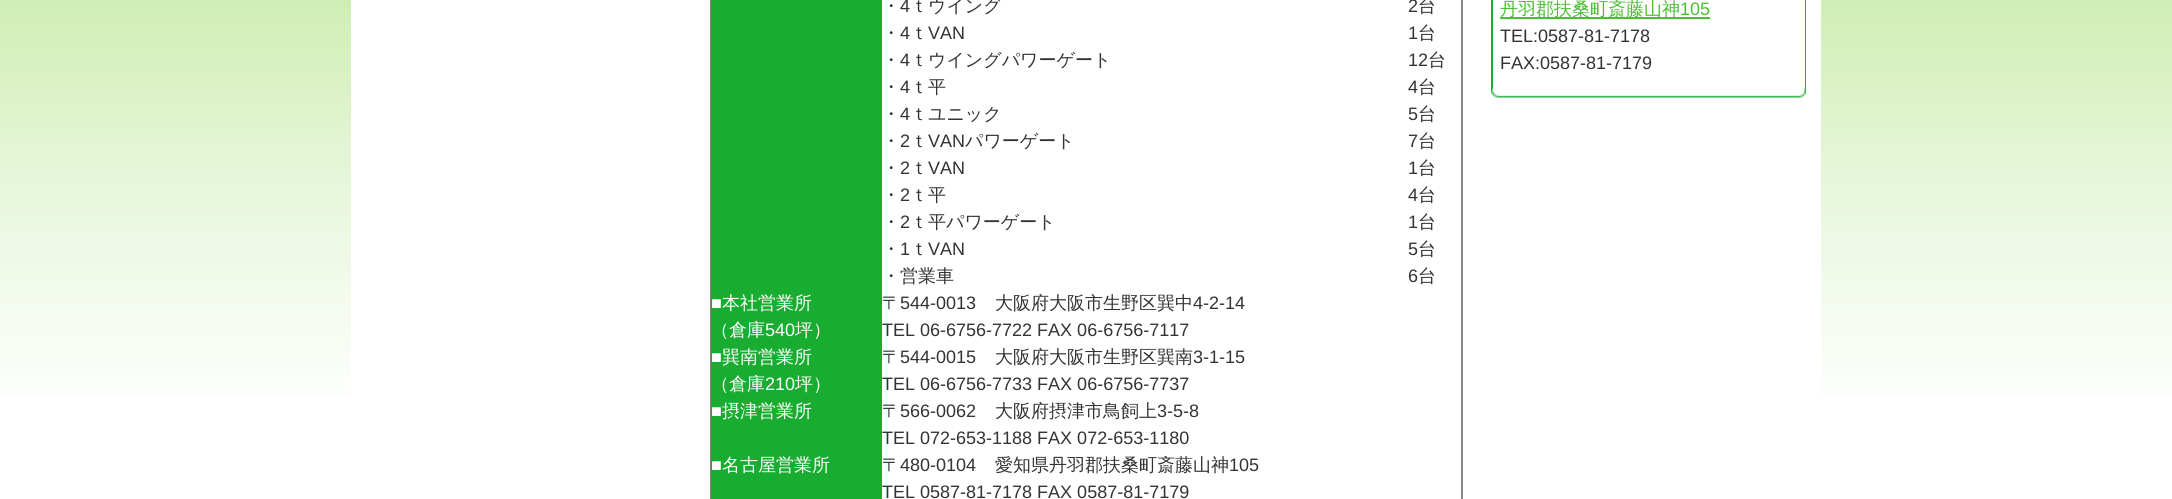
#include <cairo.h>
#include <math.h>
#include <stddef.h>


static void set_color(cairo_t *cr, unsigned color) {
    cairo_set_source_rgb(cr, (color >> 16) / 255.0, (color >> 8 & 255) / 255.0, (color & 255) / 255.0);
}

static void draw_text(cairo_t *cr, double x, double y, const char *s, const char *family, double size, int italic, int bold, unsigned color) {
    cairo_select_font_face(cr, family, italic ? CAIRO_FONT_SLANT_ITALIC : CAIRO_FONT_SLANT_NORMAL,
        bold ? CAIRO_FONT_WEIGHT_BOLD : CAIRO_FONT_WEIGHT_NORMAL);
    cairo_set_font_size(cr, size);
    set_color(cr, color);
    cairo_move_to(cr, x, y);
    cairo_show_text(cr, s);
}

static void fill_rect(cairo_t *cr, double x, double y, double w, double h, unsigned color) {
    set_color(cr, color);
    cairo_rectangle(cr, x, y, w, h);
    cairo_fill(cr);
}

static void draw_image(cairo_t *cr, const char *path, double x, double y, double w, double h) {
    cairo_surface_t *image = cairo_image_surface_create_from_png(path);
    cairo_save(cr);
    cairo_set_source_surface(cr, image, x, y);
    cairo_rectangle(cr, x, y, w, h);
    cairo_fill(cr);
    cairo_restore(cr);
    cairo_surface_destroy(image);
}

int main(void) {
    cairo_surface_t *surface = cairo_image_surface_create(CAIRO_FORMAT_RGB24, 2172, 499);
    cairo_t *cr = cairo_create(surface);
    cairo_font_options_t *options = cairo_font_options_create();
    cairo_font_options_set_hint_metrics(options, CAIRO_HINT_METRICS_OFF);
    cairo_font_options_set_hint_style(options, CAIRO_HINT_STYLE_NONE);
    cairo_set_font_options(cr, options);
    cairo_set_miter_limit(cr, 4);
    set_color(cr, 0xFFFFFF);
    cairo_paint(cr);
    draw_image(cr, "assets/img1.png", 0, 0, 2172, 396);
    fill_rect(cr, 351, 0, 1470, 396, 0xFFFFFF);
    cairo_rectangle(cr, 711, -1, 751, 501);
    set_color(cr, 0x888888);
    cairo_stroke(cr);
    fill_rect(cr, 711, 0, 171, 499, 0x18AC30);
    draw_text(cr, 882, 12, "・", "WenQuanYi Zen Hei Medium", 18, 0, 0, 0x333333);
    draw_text(cr, 900, 12, "4", "Liberation Sans", 18, 0, 0, 0x333333);
    draw_text(cr, 910, 12, "ｔウイング", "WenQuanYi Zen Hei Medium", 18, 0, 0, 0x333333);
    draw_text(cr, 1408, 12, "2", "Liberation Sans", 18, 0, 0, 0x333333);
    draw_text(cr, 1418, 12, "台", "WenQuanYi Zen Hei Medium", 18, 0, 0, 0x333333);
    draw_text(cr, 882, 39, "・", "WenQuanYi Zen Hei Medium", 18, 0, 0, 0x333333);
    draw_text(cr, 900, 39, "4", "Liberation Sans", 18, 0, 0, 0x333333);
    draw_text(cr, 910, 39, "ｔ", "WenQuanYi Zen Hei Medium", 18, 0, 0, 0x333333);
    draw_text(cr, 928, 39, "VAN", "Liberation Sans", 18, 0, 0, 0x333333);
    draw_text(cr, 1408, 39, "1", "Liberation Sans", 18, 0, 0, 0x333333);
    draw_text(cr, 1418, 39, "台", "WenQuanYi Zen Hei Medium", 18, 0, 0, 0x333333);
    draw_text(cr, 882, 66, "・", "WenQuanYi Zen Hei Medium", 18, 0, 0, 0x333333);
    draw_text(cr, 900, 66, "4", "Liberation Sans", 18, 0, 0, 0x333333);
    draw_text(cr, 910, 66, "ｔウイングパワーゲート", "WenQuanYi Zen Hei Medium", 18, 0, 0, 0x333333);
    draw_text(cr, 1408, 66, "12", "Liberation Sans", 18, 0, 0, 0x333333);
    draw_text(cr, 1428, 66, "台", "WenQuanYi Zen Hei Medium", 18, 0, 0, 0x333333);
    draw_text(cr, 882, 93, "・", "WenQuanYi Zen Hei Medium", 18, 0, 0, 0x333333);
    draw_text(cr, 900, 93, "4", "Liberation Sans", 18, 0, 0, 0x333333);
    draw_text(cr, 910, 93, "ｔ平", "WenQuanYi Zen Hei Medium", 18, 0, 0, 0x333333);
    draw_text(cr, 1408, 93, "4", "Liberation Sans", 18, 0, 0, 0x333333);
    draw_text(cr, 1418, 93, "台", "WenQuanYi Zen Hei Medium", 18, 0, 0, 0x333333);
    draw_text(cr, 882, 120, "・", "WenQuanYi Zen Hei Medium", 18, 0, 0, 0x333333);
    draw_text(cr, 900, 120, "4", "Liberation Sans", 18, 0, 0, 0x333333);
    draw_text(cr, 910, 120, "ｔユニック", "WenQuanYi Zen Hei Medium", 18, 0, 0, 0x333333);
    draw_text(cr, 1408, 120, "5", "Liberation Sans", 18, 0, 0, 0x333333);
    draw_text(cr, 1418, 120, "台", "WenQuanYi Zen Hei Medium", 18, 0, 0, 0x333333);
    draw_text(cr, 882, 147, "・", "WenQuanYi Zen Hei Medium", 18, 0, 0, 0x333333);
    draw_text(cr, 900, 147, "2", "Liberation Sans", 18, 0, 0, 0x333333);
    draw_text(cr, 910, 147, "ｔ", "WenQuanYi Zen Hei Medium", 18, 0, 0, 0x333333);
    draw_text(cr, 928, 147, "VAN", "Liberation Sans", 18, 0, 0, 0x333333);
    draw_text(cr, 965, 147, "パワーゲート", "WenQuanYi Zen Hei Medium", 18, 0, 0, 0x333333);
    draw_text(cr, 1408, 147, "7", "Liberation Sans", 18, 0, 0, 0x333333);
    draw_text(cr, 1418, 147, "台", "WenQuanYi Zen Hei Medium", 18, 0, 0, 0x333333);
    draw_text(cr, 882, 174, "・", "WenQuanYi Zen Hei Medium", 18, 0, 0, 0x333333);
    draw_text(cr, 900, 174, "2", "Liberation Sans", 18, 0, 0, 0x333333);
    draw_text(cr, 910, 174, "ｔ", "WenQuanYi Zen Hei Medium", 18, 0, 0, 0x333333);
    draw_text(cr, 928, 174, "VAN", "Liberation Sans", 18, 0, 0, 0x333333);
    draw_text(cr, 1408, 174, "1", "Liberation Sans", 18, 0, 0, 0x333333);
    draw_text(cr, 1418, 174, "台", "WenQuanYi Zen Hei Medium", 18, 0, 0, 0x333333);
    draw_text(cr, 882, 201, "・", "WenQuanYi Zen Hei Medium", 18, 0, 0, 0x333333);
    draw_text(cr, 900, 201, "2", "Liberation Sans", 18, 0, 0, 0x333333);
    draw_text(cr, 910, 201, "ｔ平", "WenQuanYi Zen Hei Medium", 18, 0, 0, 0x333333);
    draw_text(cr, 1408, 201, "4", "Liberation Sans", 18, 0, 0, 0x333333);
    draw_text(cr, 1418, 201, "台", "WenQuanYi Zen Hei Medium", 18, 0, 0, 0x333333);
    draw_text(cr, 882, 228, "・", "WenQuanYi Zen Hei Medium", 18, 0, 0, 0x333333);
    draw_text(cr, 900, 228, "2", "Liberation Sans", 18, 0, 0, 0x333333);
    draw_text(cr, 910, 228, "ｔ平パワーゲート", "WenQuanYi Zen Hei Medium", 18, 0, 0, 0x333333);
    draw_text(cr, 1408, 228, "1", "Liberation Sans", 18, 0, 0, 0x333333);
    draw_text(cr, 1418, 228, "台", "WenQuanYi Zen Hei Medium", 18, 0, 0, 0x333333);
    draw_text(cr, 882, 255, "・", "WenQuanYi Zen Hei Medium", 18, 0, 0, 0x333333);
    draw_text(cr, 900, 255, "1", "Liberation Sans", 18, 0, 0, 0x333333);
    draw_text(cr, 910, 255, "ｔ", "WenQuanYi Zen Hei Medium", 18, 0, 0, 0x333333);
    draw_text(cr, 928, 255, "VAN", "Liberation Sans", 18, 0, 0, 0x333333);
    draw_text(cr, 1408, 255, "5", "Liberation Sans", 18, 0, 0, 0x333333);
    draw_text(cr, 1418, 255, "台", "WenQuanYi Zen Hei Medium", 18, 0, 0, 0x333333);
    draw_text(cr, 882, 282, "・営業車", "WenQuanYi Zen Hei Medium", 18, 0, 0, 0x333333);
    draw_text(cr, 1408, 282, "6", "Liberation Sans", 18, 0, 0, 0x333333);
    draw_text(cr, 1418, 282, "台", "WenQuanYi Zen Hei Medium", 18, 0, 0, 0x333333);
    draw_text(cr, 711, 309, "■", "Liberation Sans", 18, 0, 0, 0xFFFFFF);
    draw_text(cr, 722, 309, "本社営業所", "WenQuanYi Zen Hei Medium", 18, 0, 0, 0xFFFFFF);
    draw_text(cr, 882, 309, "〒", "WenQuanYi Zen Hei Medium", 18, 0, 0, 0x333333);
    draw_text(cr, 900, 309, "544-0013", "Liberation Sans", 18, 0, 0, 0x333333);
    draw_text(cr, 995, 309, "大阪府大阪市生野区巽中", "WenQuanYi Zen Hei Medium", 18, 0, 0, 0x333333);
    draw_text(cr, 1193, 309, "4-2-14", "Liberation Sans", 18, 0, 0, 0x333333);
    draw_text(cr, 711, 336, "（倉庫", "WenQuanYi Zen Hei Medium", 18, 0, 0, 0xFFFFFF);
    draw_text(cr, 765, 336, "540", "Liberation Sans", 18, 0, 0, 0xFFFFFF);
    draw_text(cr, 795, 336, "坪）", "WenQuanYi Zen Hei Medium", 18, 0, 0, 0xFFFFFF);
    draw_text(cr, 882, 336, "TEL 06-6756-7722 FAX 06-6756-7117", "Liberation Sans", 18, 0, 0, 0x333333);
    draw_text(cr, 711, 363, "■", "Liberation Sans", 18, 0, 0, 0xFFFFFF);
    draw_text(cr, 722, 363, "巽南営業所", "WenQuanYi Zen Hei Medium", 18, 0, 0, 0xFFFFFF);
    draw_text(cr, 882, 363, "〒", "WenQuanYi Zen Hei Medium", 18, 0, 0, 0x333333);
    draw_text(cr, 900, 363, "544-0015", "Liberation Sans", 18, 0, 0, 0x333333);
    draw_text(cr, 995, 363, "大阪府大阪市生野区巽南", "WenQuanYi Zen Hei Medium", 18, 0, 0, 0x333333);
    draw_text(cr, 1193, 363, "3-1-15", "Liberation Sans", 18, 0, 0, 0x333333);
    draw_text(cr, 711, 390, "（倉庫", "WenQuanYi Zen Hei Medium", 18, 0, 0, 0xFFFFFF);
    draw_text(cr, 765, 390, "210", "Liberation Sans", 18, 0, 0, 0xFFFFFF);
    draw_text(cr, 795, 390, "坪）", "WenQuanYi Zen Hei Medium", 18, 0, 0, 0xFFFFFF);
    draw_text(cr, 882, 390, "TEL 06-6756-7733 FAX 06-6756-7737", "Liberation Sans", 18, 0, 0, 0x333333);
    draw_text(cr, 711, 417, "■", "Liberation Sans", 18, 0, 0, 0xFFFFFF);
    draw_text(cr, 722, 417, "摂津営業所", "WenQuanYi Zen Hei Medium", 18, 0, 0, 0xFFFFFF);
    draw_text(cr, 882, 417, "〒", "WenQuanYi Zen Hei Medium", 18, 0, 0, 0x333333);
    draw_text(cr, 900, 417, "566-0062", "Liberation Sans", 18, 0, 0, 0x333333);
    draw_text(cr, 995, 417, "大阪府摂津市鳥飼上", "WenQuanYi Zen Hei Medium", 18, 0, 0, 0x333333);
    draw_text(cr, 1157, 417, "3-5-8", "Liberation Sans", 18, 0, 0, 0x333333);
    draw_text(cr, 882, 444, "TEL 072-653-1188 FAX 072-653-1180", "Liberation Sans", 18, 0, 0, 0x333333);
    draw_text(cr, 711, 471, "■", "Liberation Sans", 18, 0, 0, 0xFFFFFF);
    draw_text(cr, 722, 471, "名古屋営業所", "WenQuanYi Zen Hei Medium", 18, 0, 0, 0xFFFFFF);
    draw_text(cr, 882, 471, "〒", "WenQuanYi Zen Hei Medium", 18, 0, 0, 0x333333);
    draw_text(cr, 900, 471, "480-0104", "Liberation Sans", 18, 0, 0, 0x333333);
    draw_text(cr, 995, 471, "愛知県丹羽郡扶桑町斎藤山神", "WenQuanYi Zen Hei Medium", 18, 0, 0, 0x333333);
    draw_text(cr, 1229, 471, "105", "Liberation Sans", 18, 0, 0, 0x333333);
    draw_text(cr, 882, 498, "TEL 0587-81-7178 FAX 0587-81-7179", "Liberation Sans", 18, 0, 0, 0x333333);
    fill_rect(cr, 1805, 0, 1, 89, 0x18AC30);
    fill_rect(cr, 1491, 0, 2, 89, 0x18AC30);
    fill_rect(cr, 1500, 17, 210, 2, 0x4CBE34);
    draw_text(cr, 1500, 15, "丹羽郡扶桑町斎藤山神", "WenQuanYi Zen Hei Medium", 18, 0, 0, 0x4CBE34);
    draw_text(cr, 1680, 15, "105", "Liberation Sans", 18, 0, 0, 0x4CBE34);
    draw_text(cr, 1500, 42, "TEL:0587-81-7178", "Liberation Sans", 18, 0, 0, 0x333333);
    draw_text(cr, 1500, 69, "FAX:0587-81-7179", "Liberation Sans", 18, 0, 0, 0x333333);
    draw_image(cr, "assets/img2.png", 1491, 88, 315, 10);
    cairo_surface_write_to_png(surface, "output.png");
    cairo_font_options_destroy(options);
    cairo_destroy(cr);
    cairo_surface_destroy(surface);
    return 0;
}
